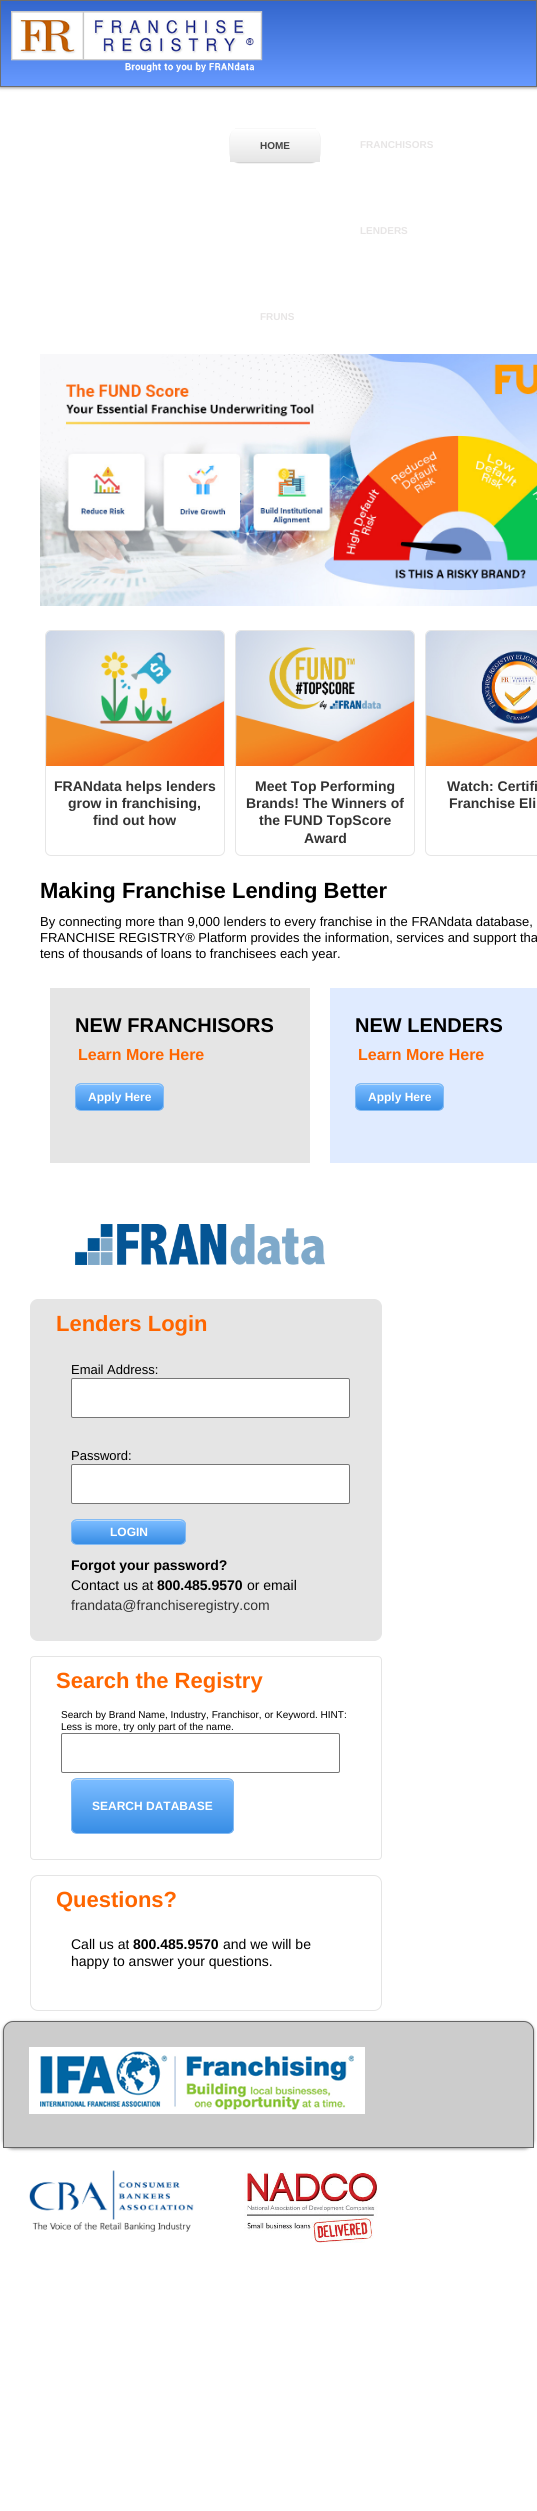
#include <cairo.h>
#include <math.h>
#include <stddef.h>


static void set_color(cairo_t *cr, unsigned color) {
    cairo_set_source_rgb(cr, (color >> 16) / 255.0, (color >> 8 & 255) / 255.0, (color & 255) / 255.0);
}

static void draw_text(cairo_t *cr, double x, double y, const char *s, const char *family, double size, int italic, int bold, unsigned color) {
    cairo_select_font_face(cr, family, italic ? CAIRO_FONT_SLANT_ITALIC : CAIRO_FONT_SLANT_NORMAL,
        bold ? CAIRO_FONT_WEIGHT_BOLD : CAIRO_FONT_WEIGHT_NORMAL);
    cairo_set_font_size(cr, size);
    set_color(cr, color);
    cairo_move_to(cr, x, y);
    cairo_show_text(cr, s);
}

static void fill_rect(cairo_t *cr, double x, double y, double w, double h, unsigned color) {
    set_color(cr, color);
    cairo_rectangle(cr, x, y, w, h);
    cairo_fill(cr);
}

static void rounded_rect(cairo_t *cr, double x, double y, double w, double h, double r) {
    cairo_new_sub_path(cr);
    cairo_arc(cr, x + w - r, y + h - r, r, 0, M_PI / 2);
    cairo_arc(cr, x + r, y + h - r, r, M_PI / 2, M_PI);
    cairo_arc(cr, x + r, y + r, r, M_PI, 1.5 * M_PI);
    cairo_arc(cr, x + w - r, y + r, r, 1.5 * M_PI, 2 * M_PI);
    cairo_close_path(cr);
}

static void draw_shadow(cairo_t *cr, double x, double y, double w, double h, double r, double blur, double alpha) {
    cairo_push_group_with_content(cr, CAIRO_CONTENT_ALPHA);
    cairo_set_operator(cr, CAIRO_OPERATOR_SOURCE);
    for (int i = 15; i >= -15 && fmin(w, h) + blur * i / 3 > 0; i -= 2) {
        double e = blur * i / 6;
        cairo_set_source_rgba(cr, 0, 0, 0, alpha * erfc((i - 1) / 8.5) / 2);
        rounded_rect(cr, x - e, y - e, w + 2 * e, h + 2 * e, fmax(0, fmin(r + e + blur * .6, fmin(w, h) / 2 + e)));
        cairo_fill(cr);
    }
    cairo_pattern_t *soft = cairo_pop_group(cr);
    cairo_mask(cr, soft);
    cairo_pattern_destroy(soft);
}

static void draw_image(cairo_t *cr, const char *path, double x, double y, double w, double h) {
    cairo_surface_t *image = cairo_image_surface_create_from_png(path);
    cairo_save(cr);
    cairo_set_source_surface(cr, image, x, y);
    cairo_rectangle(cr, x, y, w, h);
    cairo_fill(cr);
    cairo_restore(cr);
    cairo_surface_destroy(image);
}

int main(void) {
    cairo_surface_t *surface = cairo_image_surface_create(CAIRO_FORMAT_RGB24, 537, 2511);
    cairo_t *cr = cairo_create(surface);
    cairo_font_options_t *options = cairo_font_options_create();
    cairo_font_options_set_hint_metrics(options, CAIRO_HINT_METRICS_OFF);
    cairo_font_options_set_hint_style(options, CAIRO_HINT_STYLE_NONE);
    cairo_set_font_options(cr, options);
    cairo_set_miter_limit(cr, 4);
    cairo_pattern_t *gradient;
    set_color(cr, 0xFFFFFF);
    cairo_paint(cr);
    set_color(cr, 0x000000);
    draw_shadow(cr, 0, 1, 537, 87, 0, 1.5, 0.4);
    gradient = cairo_pattern_create_linear(1, 1, 1, 86);
    cairo_pattern_add_color_stop_rgba(gradient, 0, 0.2, 0.4, 0.8, 1);
    cairo_pattern_add_color_stop_rgba(gradient, 1, 0.4, 0.6, 1, 1);
    cairo_set_source(cr, gradient);
    cairo_pattern_destroy(gradient);
    cairo_rectangle(cr, 1, 1, 535, 85);
    cairo_fill(cr);
    cairo_rectangle(cr, 0.5, 0.5, 536, 86);
    set_color(cr, 0x6D6D6D);
    cairo_set_line_width(cr, 1);
    cairo_stroke(cr);
    draw_image(cr, "assets/img1.png", 11, 11, 252, 61);
    set_color(cr, 0x000000);
    draw_shadow(cr, 230, 129, 90, 34, 9, 0.5, 0.2);
    cairo_save(cr);
    cairo_new_path(cr);
    cairo_move_to(cr, 239, 128);
    cairo_line_to(cr, 311, 128);
    cairo_curve_to(cr, 316, 128, 320, 132, 320, 137);
    cairo_line_to(cr, 320, 162);
    cairo_line_to(cr, 230, 162);
    cairo_line_to(cr, 230, 137);
    cairo_curve_to(cr, 230, 132, 234, 128, 239, 128);
    cairo_close_path(cr);
    cairo_clip(cr);
    gradient = cairo_pattern_create_linear(230, 129, 230, 162);
    cairo_pattern_add_color_stop_rgba(gradient, 0, 1, 1, 1, 1);
    cairo_pattern_add_color_stop_rgba(gradient, 1, 0.898, 0.898, 0.898, 1);
    cairo_set_source(cr, gradient);
    cairo_pattern_destroy(gradient);
    cairo_rectangle(cr, 230, 129, 90, 33);
    cairo_fill(cr);
    cairo_restore(cr);
    fill_rect(cr, 235, 128, 81, 1, 0xF8F8F8);
    draw_text(cr, 260, 149, "HOME", "Liberation Sans", 10, 0, 1, 0x444444);
    draw_text(cr, 360, 148, "FRANCHISORS", "Liberation Sans", 10, 0, 1, 0xE7E5E5);
    draw_text(cr, 360, 234, "LENDERS", "Liberation Sans", 10, 0, 1, 0xE7E5E5);
    draw_text(cr, 260, 320, "FRUNS", "Liberation Sans", 10, 0, 1, 0xE7E5E5);
    draw_image(cr, "assets/img2.png", 40, 354, 497, 252);
    rounded_rect(cr, 45.5, 630.5, 179, 225, 5.5);
    set_color(cr, 0xE6E6E6);
    cairo_stroke(cr);
    draw_image(cr, "assets/img3.png", 46, 631, 178, 135);
    draw_text(cr, 54, 791, "FRANdata helps lenders", "Liberation Sans", 14, 0, 1, 0x333333);
    draw_text(cr, 68, 808, "grow in franchising,", "Liberation Sans", 14, 0, 1, 0x333333);
    draw_text(cr, 93, 825, "find out how", "Liberation Sans", 14, 0, 1, 0x333333);
    rounded_rect(cr, 235.5, 630.5, 179, 225, 5.5);
    set_color(cr, 0xE6E6E6);
    cairo_stroke(cr);
    draw_image(cr, "assets/img4.png", 236, 631, 178, 135);
    draw_text(cr, 255, 791, "Meet Top Performing", "Liberation Sans", 14, 0, 1, 0x333333);
    draw_text(cr, 246, 808, "Brands! The Winners of", "Liberation Sans", 14, 0, 1, 0x333333);
    draw_text(cr, 259, 825, "the FUND TopScore", "Liberation Sans", 14, 0, 1, 0x333333);
    draw_text(cr, 304, 843, "Award", "Liberation Sans", 14, 0, 1, 0x333333);
    rounded_rect(cr, 425.5, 630.5, 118, 225, 5.5);
    set_color(cr, 0xE6E6E6);
    cairo_stroke(cr);
    draw_image(cr, "assets/img5.png", 426, 631, 111, 135);
    draw_text(cr, 447, 791, "Watch: Certifi", "Liberation Sans", 14, 0, 1, 0x333333);
    draw_text(cr, 449, 808, "Franchise Eli", "Liberation Sans", 14, 0, 1, 0x333333);
    draw_text(cr, 40, 898, "Making Franchise Lending Better", "Liberation Sans", 22, 0, 1, 0x000000);
    draw_text(cr, 40, 926, "By connecting more than 9,000 lenders to every franchise in the FRANdata database,", "Liberation Sans", 13, 0, 0, 0x000000);
    draw_text(cr, 40, 942, "FRANCHISE REGISTRY® Platform provides the information, services and support tha", "Liberation Sans", 13, 0, 0, 0x000000);
    draw_text(cr, 40, 958, "tens of thousands of loans to franchisees each year.", "Liberation Sans", 13, 0, 0, 0x000000);
    fill_rect(cr, 50, 988, 260, 175, 0xE5E5E5);
    draw_text(cr, 75, 1032, "NEW FRANCHISORS", "Liberation Sans", 20, 0, 1, 0x000000);
    draw_text(cr, 78, 1060, "Learn More Here", "Liberation Sans", 16, 0, 1, 0xFF6600);
    cairo_save(cr);
    rounded_rect(cr, 75, 1083, 89, 28, 6);
    cairo_clip(cr);
    gradient = cairo_pattern_create_linear(76, 1084, 76, 1110);
    cairo_pattern_add_color_stop_rgba(gradient, 0.05, 0.475, 0.733, 1, 1);
    cairo_pattern_add_color_stop_rgba(gradient, 1, 0.216, 0.553, 0.898, 1);
    cairo_set_source(cr, gradient);
    cairo_pattern_destroy(gradient);
    cairo_rectangle(cr, 75, 1084, 89, 26);
    cairo_fill(cr);
    cairo_restore(cr);
    set_color(cr, 0xBBDAF7);
    cairo_new_path(cr);
    cairo_move_to(cr, 81, 1085);
    cairo_line_to(cr, 158, 1085);
    cairo_curve_to(cr, 161, 1085, 163, 1087, 163, 1090);
    cairo_curve_to(cr, 163, 1081, 151, 1084, 145, 1084);
    cairo_line_to(cr, 94, 1084);
    cairo_curve_to(cr, 88, 1084, 76, 1081, 76, 1090);
    cairo_curve_to(cr, 76, 1087, 78, 1085, 81, 1085);
    cairo_close_path(cr);
    cairo_fill(cr);
    rounded_rect(cr, 75.5, 1083.5, 88, 27, 5.5);
    set_color(cr, 0x84BBF3);
    cairo_stroke(cr);
    draw_text(cr, 88, 1101, "Apply Here", "Liberation Sans", 12, 0, 1, 0xFFFFFF);
    fill_rect(cr, 330, 988, 207, 175, 0xE0EBFF);
    draw_text(cr, 355, 1032, "NEW LENDERS", "Liberation Sans", 20, 0, 1, 0x000000);
    draw_text(cr, 358, 1060, "Learn More Here", "Liberation Sans", 16, 0, 1, 0xFF6600);
    cairo_save(cr);
    rounded_rect(cr, 355, 1083, 89, 28, 6);
    cairo_clip(cr);
    gradient = cairo_pattern_create_linear(356, 1084, 356, 1110);
    cairo_pattern_add_color_stop_rgba(gradient, 0.05, 0.475, 0.733, 1, 1);
    cairo_pattern_add_color_stop_rgba(gradient, 1, 0.216, 0.553, 0.898, 1);
    cairo_set_source(cr, gradient);
    cairo_pattern_destroy(gradient);
    cairo_rectangle(cr, 355, 1084, 89, 26);
    cairo_fill(cr);
    cairo_restore(cr);
    set_color(cr, 0xBBDAF7);
    cairo_new_path(cr);
    cairo_move_to(cr, 361, 1085);
    cairo_line_to(cr, 438, 1085);
    cairo_curve_to(cr, 441, 1085, 443, 1087, 443, 1090);
    cairo_curve_to(cr, 443, 1081, 431, 1084, 425, 1084);
    cairo_line_to(cr, 374, 1084);
    cairo_curve_to(cr, 368, 1084, 356, 1081, 356, 1090);
    cairo_curve_to(cr, 356, 1087, 358, 1085, 361, 1085);
    cairo_close_path(cr);
    cairo_fill(cr);
    rounded_rect(cr, 355.5, 1083.5, 88, 27, 5.5);
    set_color(cr, 0x84BBF3);
    cairo_stroke(cr);
    draw_text(cr, 368, 1101, "Apply Here", "Liberation Sans", 12, 0, 1, 0xFFFFFF);
    draw_image(cr, "assets/img6.png", 75, 1224, 250, 41);
    set_color(cr, 0xE5E5E5);
    rounded_rect(cr, 30.5, 1299.5, 351, 341, 7.5);
    cairo_fill_preserve(cr);
    cairo_stroke(cr);
    draw_text(cr, 56, 1331, "Lenders Login", "Liberation Sans", 22, 0, 1, 0xFF6600);
    draw_text(cr, 71, 1374, "Email Address:", "Liberation Sans", 13, 0, 0, 0x000000);
    set_color(cr, 0xFFFFFF);
    rounded_rect(cr, 71.5, 1378.5, 278, 39, 1.5);
    cairo_fill_preserve(cr);
    set_color(cr, 0x767676);
    cairo_stroke(cr);
    draw_text(cr, 71, 1460, "Password:", "Liberation Sans", 13, 0, 0, 0x000000);
    set_color(cr, 0xFFFFFF);
    rounded_rect(cr, 71.5, 1464.5, 278, 39, 1.5);
    cairo_fill_preserve(cr);
    set_color(cr, 0x767676);
    cairo_stroke(cr);
    cairo_save(cr);
    rounded_rect(cr, 71, 1519, 115, 26, 6);
    cairo_clip(cr);
    gradient = cairo_pattern_create_linear(72, 1520, 72, 1544);
    cairo_pattern_add_color_stop_rgba(gradient, 0.05, 0.475, 0.733, 1, 1);
    cairo_pattern_add_color_stop_rgba(gradient, 1, 0.216, 0.553, 0.898, 1);
    cairo_set_source(cr, gradient);
    cairo_pattern_destroy(gradient);
    cairo_rectangle(cr, 71, 1520, 115, 24);
    cairo_fill(cr);
    cairo_restore(cr);
    set_color(cr, 0xBBDAF7);
    cairo_new_path(cr);
    cairo_move_to(cr, 77, 1521);
    cairo_line_to(cr, 180, 1521);
    cairo_curve_to(cr, 183, 1521, 185, 1523, 185, 1526);
    cairo_curve_to(cr, 185, 1516, 168, 1520, 163, 1520);
    cairo_line_to(cr, 94, 1520);
    cairo_curve_to(cr, 89, 1520, 72, 1516, 72, 1526);
    cairo_curve_to(cr, 72, 1523, 74, 1521, 77, 1521);
    cairo_close_path(cr);
    cairo_fill(cr);
    rounded_rect(cr, 71.5, 1519.5, 114, 25, 5.5);
    set_color(cr, 0x84BBF3);
    cairo_stroke(cr);
    draw_text(cr, 110, 1536, "LOGIN", "Liberation Sans", 12, 0, 1, 0xFFFFFF);
    draw_text(cr, 71, 1570, "Forgot your password?", "Liberation Sans", 14, 0, 1, 0x000000);
    draw_text(cr, 71, 1590, "Contact us at", "Liberation Sans", 14, 0, 0, 0x000000);
    draw_text(cr, 157, 1590, "800.485.9570", "Liberation Sans", 14, 0, 1, 0x000000);
    draw_text(cr, 247, 1590, "or email", "Liberation Sans", 14, 0, 0, 0x000000);
    draw_text(cr, 71, 1610, "frandata@franchiseregistry.com", "Liberation Sans", 14, 0, 0, 0x333333);
    rounded_rect(cr, 30.5, 1656.5, 351, 203, 3.5);
    set_color(cr, 0xE5E5E5);
    cairo_stroke(cr);
    draw_text(cr, 56, 1688, "Search the Registry", "Liberation Sans", 22, 0, 1, 0xFF6600);
    draw_text(cr, 61, 1718, "Search by Brand Name, Industry, Franchisor, or Keyword. HINT:", "Liberation Sans", 10, 0, 0, 0x000000);
    draw_text(cr, 61, 1730, "Less is more, try only part of the name.", "Liberation Sans", 10, 0, 0, 0x000000);
    rounded_rect(cr, 61.5, 1733.5, 278, 39, 1.5);
    set_color(cr, 0x767676);
    cairo_stroke(cr);
    cairo_save(cr);
    rounded_rect(cr, 71, 1778, 163, 56, 6);
    cairo_clip(cr);
    gradient = cairo_pattern_create_linear(72, 1779, 72, 1833);
    cairo_pattern_add_color_stop_rgba(gradient, 0.05, 0.475, 0.733, 1, 1);
    cairo_pattern_add_color_stop_rgba(gradient, 1, 0.216, 0.553, 0.898, 1);
    cairo_set_source(cr, gradient);
    cairo_pattern_destroy(gradient);
    cairo_rectangle(cr, 71, 1779, 163, 54);
    cairo_fill(cr);
    cairo_restore(cr);
    set_color(cr, 0xBBDAF7);
    cairo_new_path(cr);
    cairo_move_to(cr, 77, 1780);
    cairo_line_to(cr, 228, 1780);
    cairo_curve_to(cr, 231, 1780, 233, 1782, 233, 1785);
    cairo_line_to(cr, 233, 1784);
    cairo_curve_to(cr, 233, 1781, 231, 1779, 228, 1779);
    cairo_line_to(cr, 77, 1779);
    cairo_curve_to(cr, 74, 1779, 72, 1781, 72, 1784);
    cairo_line_to(cr, 72, 1785);
    cairo_curve_to(cr, 72, 1782, 74, 1780, 77, 1780);
    cairo_close_path(cr);
    cairo_fill(cr);
    rounded_rect(cr, 71.5, 1778.5, 162, 55, 5.5);
    set_color(cr, 0x84BBF3);
    cairo_stroke(cr);
    draw_text(cr, 92, 1810, "SEARCH DATABASE", "Liberation Sans", 12, 0, 1, 0xFFFFFF);
    rounded_rect(cr, 30.5, 1875.5, 351, 135, 7.5);
    set_color(cr, 0xE5E5E5);
    cairo_stroke(cr);
    draw_text(cr, 56, 1907, "Questions?", "Liberation Sans", 22, 0, 1, 0xFF6600);
    draw_text(cr, 71, 1949, "Call us at", "Liberation Sans", 14, 0, 0, 0x000000);
    draw_text(cr, 133, 1949, "800.485.9570", "Liberation Sans", 14, 0, 1, 0x000000);
    draw_text(cr, 223, 1949, "and we will be", "Liberation Sans", 14, 0, 0, 0x000000);
    draw_text(cr, 71, 1966, "happy to answer your questions.", "Liberation Sans", 14, 0, 0, 0x000000);
    set_color(cr, 0x000000);
    draw_shadow(cr, 3, 2022, 531, 127, 10, 1.5, 0.4);
    set_color(cr, 0xCCCCCC);
    cairo_new_path(cr);
    cairo_move_to(cr, 13, 2021.5);
    cairo_line_to(cr, 524, 2021.5);
    cairo_curve_to(cr, 529, 2021.5, 533.5, 2026, 533.5, 2031);
    cairo_line_to(cr, 533.5, 2147.5);
    cairo_line_to(cr, 3.5, 2147.5);
    cairo_line_to(cr, 3.5, 2031);
    cairo_curve_to(cr, 3.5, 2026, 8, 2021.5, 13, 2021.5);
    cairo_close_path(cr);
    cairo_fill_preserve(cr);
    set_color(cr, 0x666666);
    cairo_stroke(cr);
    draw_image(cr, "assets/img7.png", 29, 2047, 336, 67);
    draw_image(cr, "assets/img8.png", 29, 2170, 165, 62);
    draw_image(cr, "assets/img9.png", 244, 2172, 134, 71);
    cairo_surface_write_to_png(surface, "output.png");
    cairo_font_options_destroy(options);
    cairo_destroy(cr);
    cairo_surface_destroy(surface);
    return 0;
}
